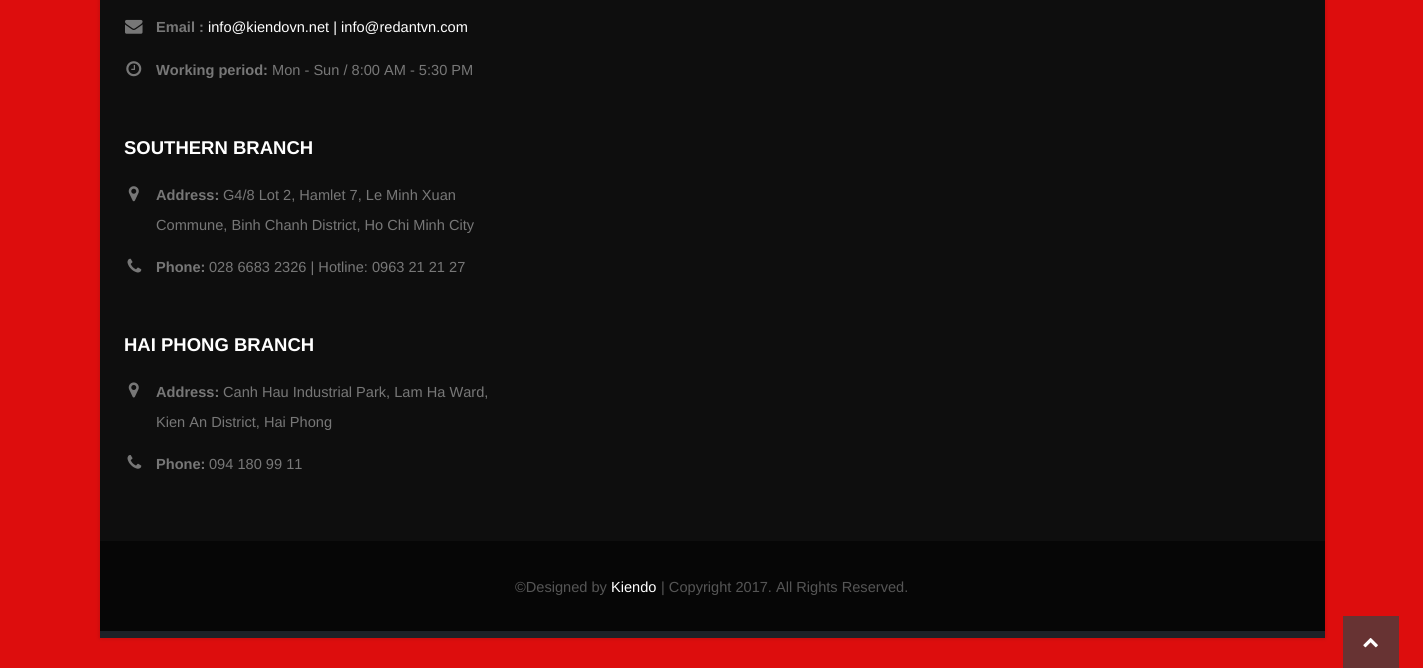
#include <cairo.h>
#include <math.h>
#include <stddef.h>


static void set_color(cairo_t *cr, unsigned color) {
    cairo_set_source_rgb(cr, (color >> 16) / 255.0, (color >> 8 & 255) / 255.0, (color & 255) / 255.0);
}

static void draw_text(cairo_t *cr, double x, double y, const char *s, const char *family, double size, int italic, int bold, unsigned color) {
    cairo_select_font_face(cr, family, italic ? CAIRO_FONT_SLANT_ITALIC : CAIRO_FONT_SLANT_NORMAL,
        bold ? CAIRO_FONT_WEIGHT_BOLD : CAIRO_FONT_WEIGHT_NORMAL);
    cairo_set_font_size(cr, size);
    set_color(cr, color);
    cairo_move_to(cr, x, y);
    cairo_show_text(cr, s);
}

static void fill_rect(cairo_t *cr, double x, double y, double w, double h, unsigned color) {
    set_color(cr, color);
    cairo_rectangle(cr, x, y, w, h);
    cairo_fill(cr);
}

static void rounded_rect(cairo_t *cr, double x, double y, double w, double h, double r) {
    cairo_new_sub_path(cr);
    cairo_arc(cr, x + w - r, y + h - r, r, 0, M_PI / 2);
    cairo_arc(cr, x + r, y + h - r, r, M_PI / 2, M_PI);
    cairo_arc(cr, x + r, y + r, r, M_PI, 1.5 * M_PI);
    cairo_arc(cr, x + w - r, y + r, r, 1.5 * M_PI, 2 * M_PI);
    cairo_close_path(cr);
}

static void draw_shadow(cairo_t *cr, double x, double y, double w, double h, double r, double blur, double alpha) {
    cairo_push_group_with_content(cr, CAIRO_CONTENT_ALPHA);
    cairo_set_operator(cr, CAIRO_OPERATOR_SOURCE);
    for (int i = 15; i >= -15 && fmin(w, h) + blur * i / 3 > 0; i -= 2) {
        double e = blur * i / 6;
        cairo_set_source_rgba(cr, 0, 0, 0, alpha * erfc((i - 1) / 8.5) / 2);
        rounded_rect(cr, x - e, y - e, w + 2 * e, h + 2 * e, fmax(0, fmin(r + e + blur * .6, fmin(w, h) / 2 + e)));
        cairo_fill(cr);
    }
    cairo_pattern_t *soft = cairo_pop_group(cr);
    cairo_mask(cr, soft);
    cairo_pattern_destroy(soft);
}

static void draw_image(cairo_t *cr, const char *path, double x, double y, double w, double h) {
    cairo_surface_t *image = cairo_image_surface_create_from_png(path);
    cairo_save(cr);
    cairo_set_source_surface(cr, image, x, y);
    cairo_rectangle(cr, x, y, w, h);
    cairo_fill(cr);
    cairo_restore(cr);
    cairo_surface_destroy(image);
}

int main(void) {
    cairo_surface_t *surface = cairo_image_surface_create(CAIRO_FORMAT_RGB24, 1423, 668);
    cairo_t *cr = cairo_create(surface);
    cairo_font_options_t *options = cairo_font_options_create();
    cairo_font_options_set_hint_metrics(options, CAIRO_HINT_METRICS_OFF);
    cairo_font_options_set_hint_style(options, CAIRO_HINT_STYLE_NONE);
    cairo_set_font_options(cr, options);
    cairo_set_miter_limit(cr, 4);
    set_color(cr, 0xDD0D0D);
    cairo_paint(cr);
    set_color(cr, 0x000000);
    draw_shadow(cr, 100, -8, 1225, 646, 0, 2.5, 0.15);
    fill_rect(cr, 100, 631, 1225, 7, 0x1D2127);
    fill_rect(cr, 100, 0, 1225, 541, 0x0E0E0E);
    draw_image(cr, "assets/img1.png", 125, 19, 18, 15);
    draw_text(cr, 156, 32, "Email :", "Liberation Sans", 14.6, 0, 1, 0x777777);
    draw_text(cr, 208, 32, "info@kiendovn.net | info@redantvn.com", "Liberation Sans", 14.6, 0, 0, 0xFFFFFF);
    draw_image(cr, "assets/img2.png", 126, 61, 16, 16);
    draw_text(cr, 156, 75, "Working period:", "Liberation Sans", 14.6, 0, 1, 0x777777);
    draw_text(cr, 272, 75, "Mon - Sun / 8:00 AM - 5:30 PM", "Liberation Sans", 14.6, 0, 0, 0x777777);
    draw_text(cr, 124, 154, "SOUTHERN BRANCH", "Liberation Sans", 18.5, 0, 1, 0xFFFFFF);
    draw_image(cr, "assets/img3.png", 128, 186, 11, 16);
    draw_text(cr, 156, 200, "Address:", "Liberation Sans", 14.6, 0, 1, 0x777777);
    draw_text(cr, 223, 200, "G4/8 Lot 2, Hamlet 7, Le Minh Xuan", "Liberation Sans", 14.6, 0, 0, 0x777777);
    draw_text(cr, 156, 230, "Commune, Binh Chanh District, Ho Chi Minh City", "Liberation Sans", 14.6, 0, 0, 0x777777);
    draw_image(cr, "assets/img4.png", 127, 258, 15, 15);
    draw_text(cr, 156, 272, "Phone:", "Liberation Sans", 14.6, 0, 1, 0x777777);
    draw_text(cr, 209, 272, "028 6683 2326 | Hotline: 0963 21 21 27", "Liberation Sans", 14.6, 0, 0, 0x777777);
    draw_text(cr, 124, 351, "HAI PHONG BRANCH", "Liberation Sans", 18.5, 0, 1, 0xFFFFFF);
    draw_image(cr, "assets/img5.png", 128, 382, 11, 16);
    draw_text(cr, 156, 397, "Address:", "Liberation Sans", 14.6, 0, 1, 0x777777);
    draw_text(cr, 223, 397, "Canh Hau Industrial Park, Lam Ha Ward,", "Liberation Sans", 14.6, 0, 0, 0x777777);
    draw_text(cr, 156, 427, "Kien An District, Hai Phong", "Liberation Sans", 14.6, 0, 0, 0x777777);
    draw_image(cr, "assets/img6.png", 127, 455, 15, 14);
    draw_text(cr, 156, 469, "Phone:", "Liberation Sans", 14.6, 0, 1, 0x777777);
    draw_text(cr, 209, 469, "094 180 99 11", "Liberation Sans", 14.6, 0, 0, 0x777777);
    fill_rect(cr, 100, 541, 1225, 90, 0x060606);
    draw_text(cr, 515, 592, "©Designed by", "Liberation Sans", 14.6, 0, 0, 0x555555);
    draw_text(cr, 611, 592, "Kiendo", "Liberation Sans", 14.6, 0, 0, 0xFFFFFF);
    draw_text(cr, 661, 592, "| Copyright 2017. All Rights Reserved.", "Liberation Sans", 14.6, 0, 0, 0x555555);
    fill_rect(cr, 1343, 616, 56, 52, 0x673333);
    draw_image(cr, "assets/img7.png", 1363, 638, 15, 10);
    cairo_surface_write_to_png(surface, "output.png");
    cairo_font_options_destroy(options);
    cairo_destroy(cr);
    cairo_surface_destroy(surface);
    return 0;
}
